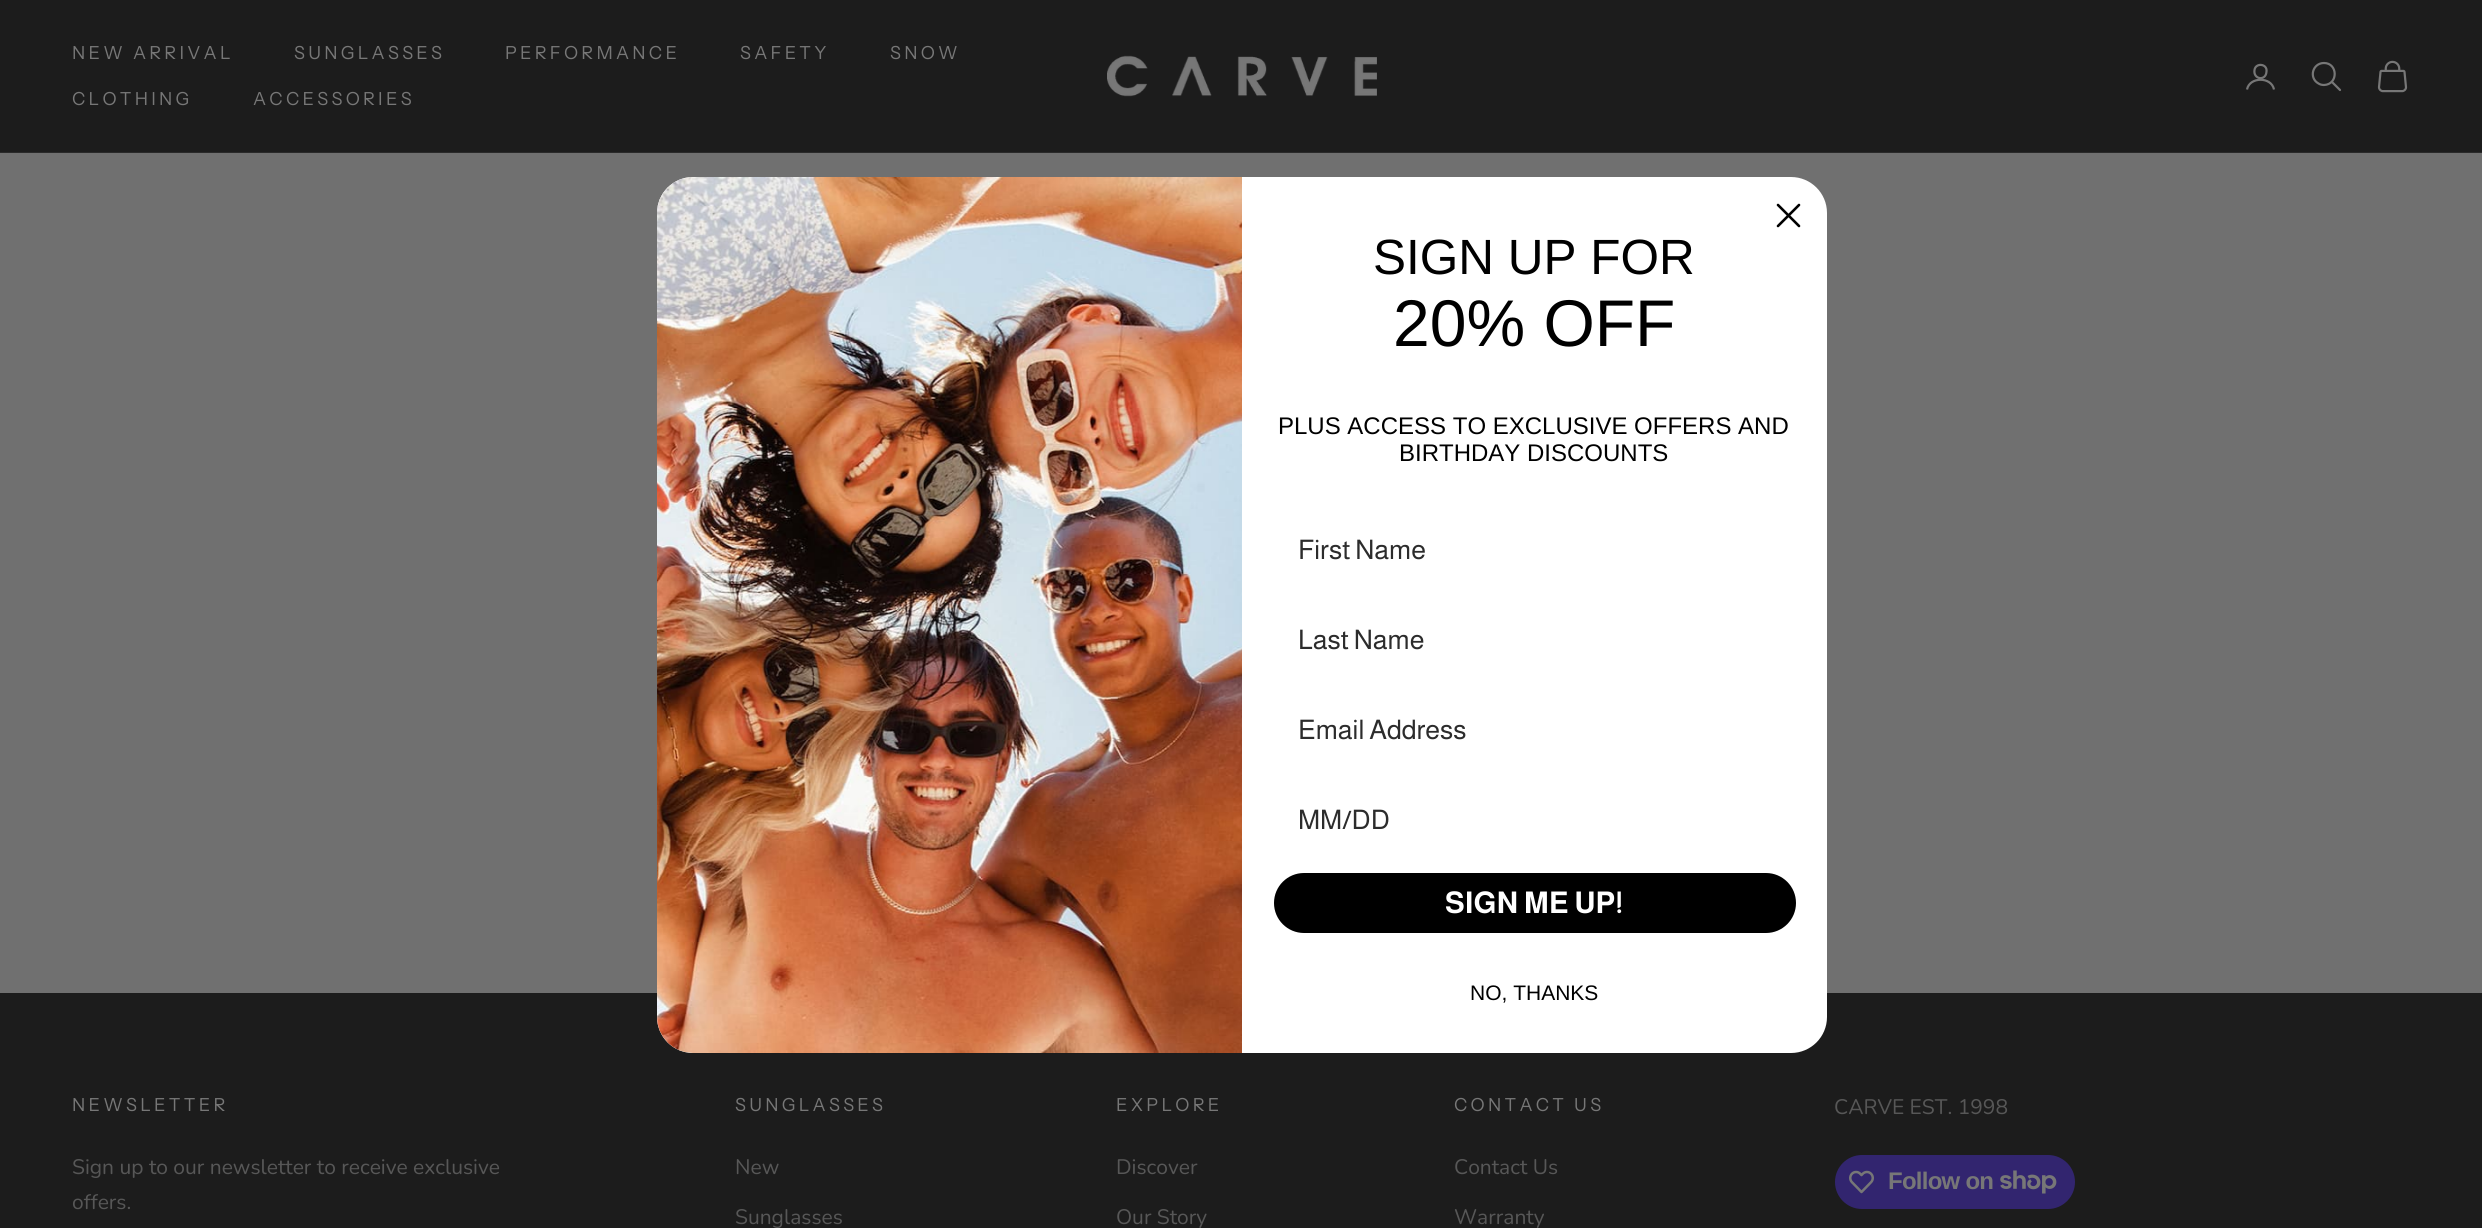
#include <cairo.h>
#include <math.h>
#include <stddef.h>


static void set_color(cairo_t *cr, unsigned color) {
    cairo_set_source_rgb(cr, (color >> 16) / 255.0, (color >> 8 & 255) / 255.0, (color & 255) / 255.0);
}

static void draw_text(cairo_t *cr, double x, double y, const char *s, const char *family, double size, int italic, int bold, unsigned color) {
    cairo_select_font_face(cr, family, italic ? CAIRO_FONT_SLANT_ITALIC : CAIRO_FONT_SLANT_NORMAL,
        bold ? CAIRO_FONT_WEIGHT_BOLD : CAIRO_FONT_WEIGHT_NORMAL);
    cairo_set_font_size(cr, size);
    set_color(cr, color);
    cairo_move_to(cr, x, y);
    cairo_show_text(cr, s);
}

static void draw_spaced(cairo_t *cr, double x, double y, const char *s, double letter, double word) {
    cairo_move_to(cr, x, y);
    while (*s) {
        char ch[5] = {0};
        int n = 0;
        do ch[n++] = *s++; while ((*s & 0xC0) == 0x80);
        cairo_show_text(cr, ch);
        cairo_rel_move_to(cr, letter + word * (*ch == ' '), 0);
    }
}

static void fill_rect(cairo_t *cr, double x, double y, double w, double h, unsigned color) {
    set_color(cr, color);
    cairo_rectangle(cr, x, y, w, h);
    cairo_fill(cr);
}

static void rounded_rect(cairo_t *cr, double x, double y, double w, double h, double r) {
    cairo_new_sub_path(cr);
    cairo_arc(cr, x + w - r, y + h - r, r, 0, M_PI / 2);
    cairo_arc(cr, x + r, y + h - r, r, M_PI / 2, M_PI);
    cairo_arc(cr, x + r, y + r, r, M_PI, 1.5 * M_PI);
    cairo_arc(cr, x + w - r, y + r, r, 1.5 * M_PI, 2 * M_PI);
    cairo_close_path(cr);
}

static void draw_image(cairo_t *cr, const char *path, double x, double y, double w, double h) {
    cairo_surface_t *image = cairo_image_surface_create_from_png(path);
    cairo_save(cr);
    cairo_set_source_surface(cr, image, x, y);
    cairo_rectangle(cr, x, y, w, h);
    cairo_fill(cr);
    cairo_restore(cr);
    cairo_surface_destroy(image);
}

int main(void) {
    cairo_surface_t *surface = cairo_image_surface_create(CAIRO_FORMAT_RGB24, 2482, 1228);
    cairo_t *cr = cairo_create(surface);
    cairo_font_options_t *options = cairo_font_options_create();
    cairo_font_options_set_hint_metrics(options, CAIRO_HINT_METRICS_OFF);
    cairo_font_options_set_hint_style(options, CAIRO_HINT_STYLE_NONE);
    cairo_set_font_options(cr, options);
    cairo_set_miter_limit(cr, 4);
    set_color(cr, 0x707070);
    cairo_paint(cr);
    fill_rect(cr, 0, 0, 2482, 152, 0x1C1C1C);
    fill_rect(cr, 0, 152, 2482, 1, 0x2A2A2A);
    cairo_select_font_face(cr, "Instrument Sans", CAIRO_FONT_SLANT_NORMAL, CAIRO_FONT_WEIGHT_NORMAL);
    cairo_set_font_size(cr, 18);
    set_color(cr, 0x777777);
    draw_spaced(cr, 72, 59, "NEW ARRIVAL", 3.25, 0);
    draw_spaced(cr, 294, 59, "SUNGLASSES", 3.25, 0);
    draw_spaced(cr, 505, 59, "PERFORMANCE", 3.25, 0);
    draw_spaced(cr, 740, 59, "SAFETY", 3.25, 0);
    draw_spaced(cr, 890, 59, "SNOW", 3.25, 0);
    draw_spaced(cr, 72, 105, "CLOTHING", 3.25, 0);
    draw_spaced(cr, 253, 105, "ACCESSORIES", 3.25, 0);
    draw_image(cr, "assets/img1.png", 1107, 55, 270, 42);
    cairo_new_path(cr);
    cairo_move_to(cr, 2266.5, 71.5);
    cairo_curve_to(cr, 2266, 81.5, 2253, 79.5, 2254.5, 70);
    cairo_curve_to(cr, 2255.5, 62.5, 2267.5, 63.5, 2266.5, 71.5);
    cairo_close_path(cr);
    cairo_set_line_width(cr, 2.2);
    cairo_set_line_cap(cr, CAIRO_LINE_CAP_ROUND);
    cairo_set_line_join(cr, CAIRO_LINE_JOIN_ROUND);
    cairo_stroke(cr);
    cairo_new_path(cr);
    cairo_move_to(cr, 2247, 89.5);
    cairo_curve_to(cr, 2249.5, 76.5, 2271.5, 76.5, 2274, 89.5);
    cairo_set_line_cap(cr, CAIRO_LINE_CAP_BUTT);
    cairo_set_line_join(cr, CAIRO_LINE_JOIN_MITER);
    cairo_stroke(cr);
    cairo_new_path(cr);
    cairo_move_to(cr, 2324, 63);
    cairo_curve_to(cr, 2312.5, 63, 2308.5, 78, 2318.5, 83.5);
    cairo_curve_to(cr, 2320, 84.5, 2322, 85, 2324, 85);
    cairo_curve_to(cr, 2338.5, 84.5, 2338, 63, 2324, 63);
    cairo_close_path(cr);
    cairo_stroke(cr);
    cairo_new_path(cr);
    cairo_move_to(cr, 2332.5, 82.5);
    cairo_line_to(cr, 2340, 90);
    cairo_set_line_cap(cr, CAIRO_LINE_CAP_ROUND);
    cairo_stroke(cr);
    draw_image(cr, "assets/img2.png", 2377, 60, 31, 33);
    fill_rect(cr, 0, 993, 2482, 235, 0x1C1C1C);
    set_color(cr, 0xFFFFFF);
    rounded_rect(cr, 657, 177, 1170, 876, 36);
    cairo_fill(cr);
    cairo_new_path(cr);
    cairo_move_to(cr, 1778, 205);
    cairo_line_to(cr, 1799, 226);
    cairo_move_to(cr, 1778, 226);
    cairo_line_to(cr, 1799, 205);
    cairo_close_path(cr);
    set_color(cr, 0x000000);
    cairo_set_line_width(cr, 2.6);
    cairo_set_line_join(cr, CAIRO_LINE_JOIN_ROUND);
    cairo_stroke(cr);
    draw_image(cr, "assets/img3.png", 657, 177, 585, 876);
    draw_text(cr, 1373, 274, "SIGN UP FOR", "Liberation Sans", 49.5, 0, 0, 0x000000);
    draw_text(cr, 1393, 346, "20% OFF", "Liberation Sans", 66, 0, 0, 0x000000);
    draw_text(cr, 1278, 434, "PLUS ACCESS TO EXCLUSIVE OFFERS AND", "Liberation Sans", 24, 0, 0, 0x000000);
    draw_text(cr, 1399, 461, "BIRTHDAY DISCOUNTS", "Liberation Sans", 24, 0, 0, 0x000000);
    draw_text(cr, 1298, 559, "First Name", "Almarai", 27, 0, 0, 0x2C2C2C);
    draw_text(cr, 1298, 649, "Last Name", "Almarai", 27, 0, 0, 0x2C2C2C);
    draw_text(cr, 1298, 739, "Email Address", "Almarai", 27, 0, 0, 0x2C2C2C);
    draw_text(cr, 1298, 829, "MM/DD", "Almarai", 27, 0, 0, 0x2C2C2C);
    set_color(cr, 0x000000);
    rounded_rect(cr, 1274, 873, 522, 60, 30);
    cairo_fill(cr);
    draw_text(cr, 1445, 913, "SIGN ME UP!", "Almarai", 30, 0, 1, 0xFFFFFF);
    draw_text(cr, 1470, 1000, "NO, THANKS", "Liberation Sans", 21, 0, 0, 0x000000);
    cairo_select_font_face(cr, "Instrument Sans", CAIRO_FONT_SLANT_NORMAL, CAIRO_FONT_WEIGHT_NORMAL);
    cairo_set_font_size(cr, 18);
    set_color(cr, 0x777777);
    draw_spaced(cr, 72, 1111, "NEWSLETTER", 3.25, 0);
    draw_text(cr, 72, 1174, "Sign up to our newsletter to receive exclusive", "Nunito", 21, 0, 0, 0x575757);
    draw_text(cr, 72, 1209, "offers.", "Nunito", 21, 0, 0, 0x575757);
    cairo_select_font_face(cr, "Instrument Sans", CAIRO_FONT_SLANT_NORMAL, CAIRO_FONT_WEIGHT_NORMAL);
    cairo_set_font_size(cr, 18);
    set_color(cr, 0x777777);
    draw_spaced(cr, 735, 1111, "SUNGLASSES", 3.25, 0);
    draw_text(cr, 735, 1174, "New", "Nunito", 21, 0, 0, 0x575757);
    draw_text(cr, 735, 1224, "Sunglasses", "Nunito", 21, 0, 0, 0x575757);
    cairo_select_font_face(cr, "Instrument Sans", CAIRO_FONT_SLANT_NORMAL, CAIRO_FONT_WEIGHT_NORMAL);
    cairo_set_font_size(cr, 18);
    set_color(cr, 0x777777);
    draw_spaced(cr, 1116, 1111, "EXPLORE", 3.25, 0);
    draw_text(cr, 1116, 1174, "Discover", "Nunito", 21, 0, 0, 0x575757);
    draw_text(cr, 1116, 1224, "Our Story", "Nunito", 21, 0, 0, 0x575757);
    cairo_select_font_face(cr, "Instrument Sans", CAIRO_FONT_SLANT_NORMAL, CAIRO_FONT_WEIGHT_NORMAL);
    cairo_set_font_size(cr, 18);
    set_color(cr, 0x777777);
    draw_spaced(cr, 1454, 1111, "CONTACT US", 3.25, 0);
    draw_text(cr, 1454, 1174, "Contact Us", "Nunito", 21, 0, 0, 0x575757);
    draw_text(cr, 1454, 1224, "Warranty", "Nunito", 21, 0, 0, 0x575757);
    draw_text(cr, 1834, 1114, "CARVE EST. 1998", "Nunito", 21, 0, 0, 0x575757);
    set_color(cr, 0x32256F);
    rounded_rect(cr, 1835, 1155, 240, 54, 27);
    cairo_fill(cr);
    draw_image(cr, "assets/img4.png", 1849, 1170, 25, 24);
    cairo_select_font_face(cr, "Liberation Sans", CAIRO_FONT_SLANT_NORMAL, CAIRO_FONT_WEIGHT_BOLD);
    cairo_set_font_size(cr, 24);
    set_color(cr, 0x777777);
    draw_spaced(cr, 1888, 1189, "Follow on", -0.75, 0);
    draw_image(cr, "assets/img5.png", 2000, 1170, 57, 24);
    cairo_surface_write_to_png(surface, "output.png");
    cairo_font_options_destroy(options);
    cairo_destroy(cr);
    cairo_surface_destroy(surface);
    return 0;
}
